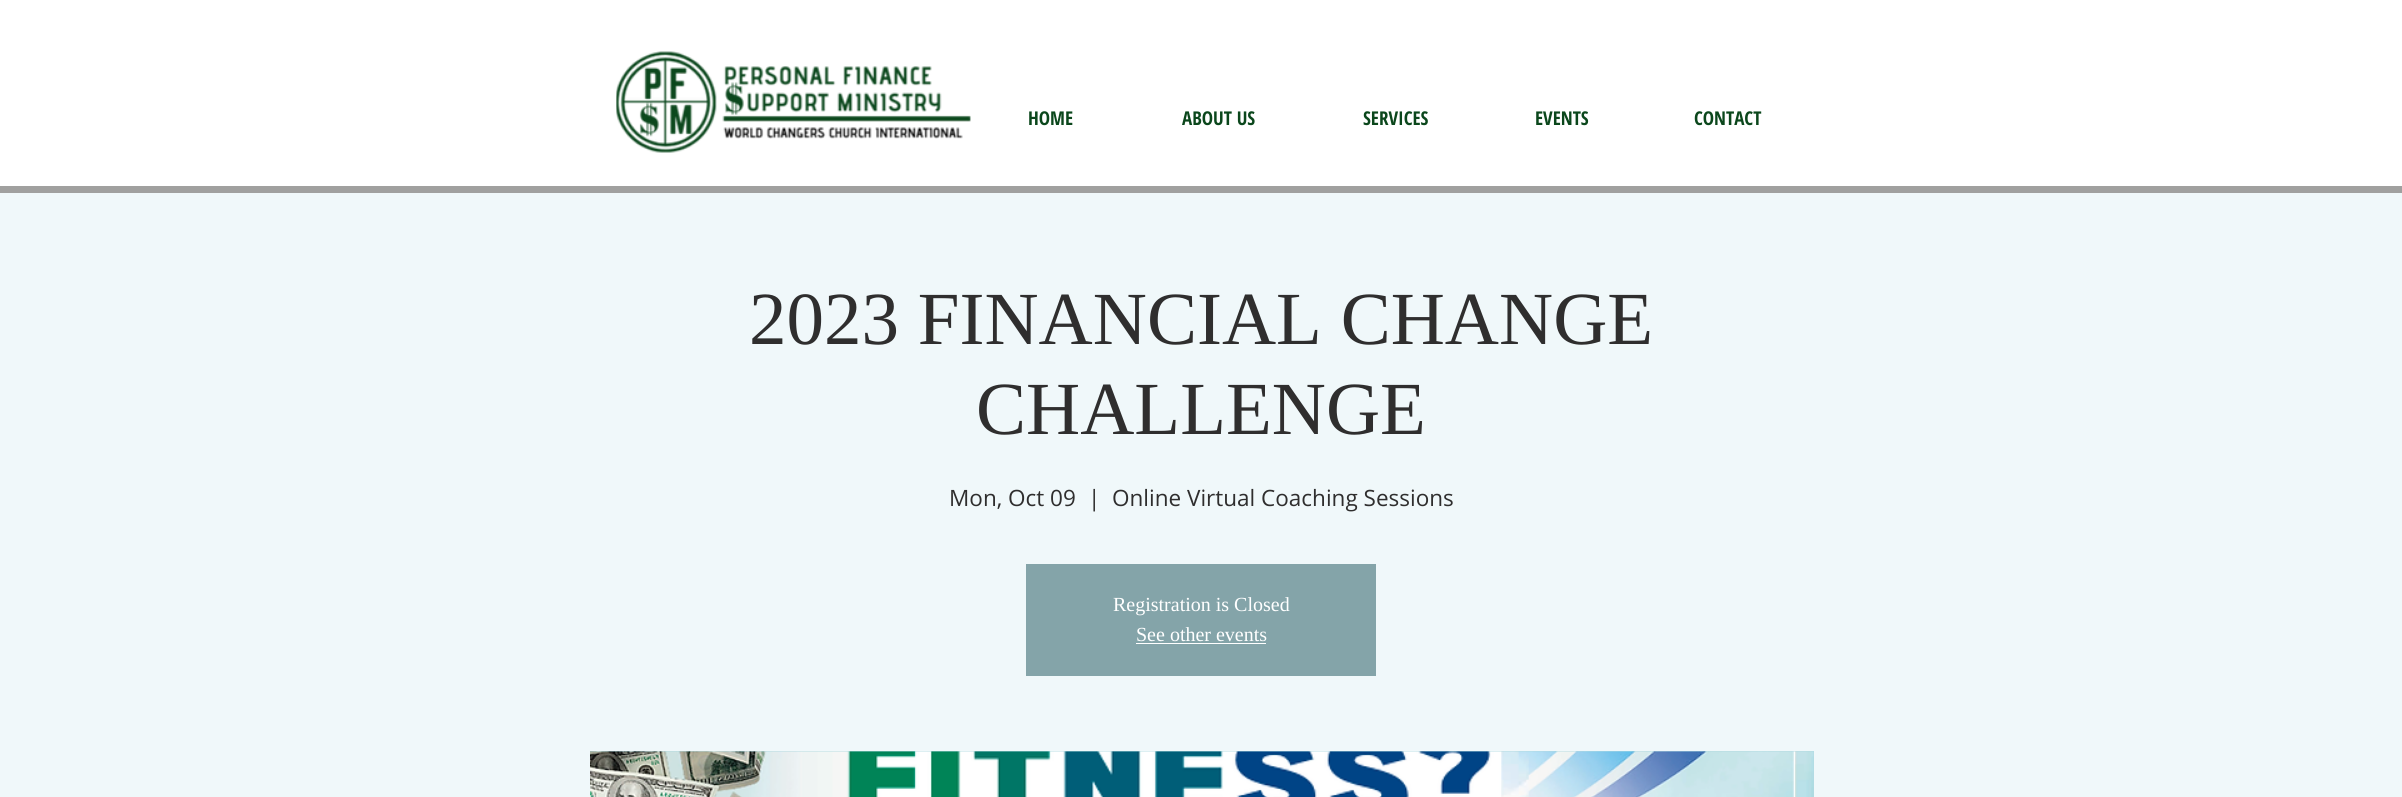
#include <cairo.h>
#include <math.h>
#include <stddef.h>


static void set_color(cairo_t *cr, unsigned color) {
    cairo_set_source_rgb(cr, (color >> 16) / 255.0, (color >> 8 & 255) / 255.0, (color & 255) / 255.0);
}

static void draw_text(cairo_t *cr, double x, double y, const char *s, const char *family, double size, int italic, int bold, unsigned color) {
    cairo_select_font_face(cr, family, italic ? CAIRO_FONT_SLANT_ITALIC : CAIRO_FONT_SLANT_NORMAL,
        bold ? CAIRO_FONT_WEIGHT_BOLD : CAIRO_FONT_WEIGHT_NORMAL);
    cairo_set_font_size(cr, size);
    set_color(cr, color);
    cairo_move_to(cr, x, y);
    cairo_show_text(cr, s);
}

static void fill_rect(cairo_t *cr, double x, double y, double w, double h, unsigned color) {
    set_color(cr, color);
    cairo_rectangle(cr, x, y, w, h);
    cairo_fill(cr);
}

static void draw_image(cairo_t *cr, const char *path, double x, double y, double w, double h) {
    cairo_surface_t *image = cairo_image_surface_create_from_png(path);
    cairo_save(cr);
    cairo_set_source_surface(cr, image, x, y);
    cairo_rectangle(cr, x, y, w, h);
    cairo_fill(cr);
    cairo_restore(cr);
    cairo_surface_destroy(image);
}

int main(void) {
    cairo_surface_t *surface = cairo_image_surface_create(CAIRO_FORMAT_RGB24, 2402, 797);
    cairo_t *cr = cairo_create(surface);
    cairo_font_options_t *options = cairo_font_options_create();
    cairo_font_options_set_hint_metrics(options, CAIRO_HINT_METRICS_OFF);
    cairo_font_options_set_hint_style(options, CAIRO_HINT_STYLE_NONE);
    cairo_set_font_options(cr, options);
    cairo_set_miter_limit(cr, 4);
    set_color(cr, 0xFFFFFF);
    cairo_paint(cr);
    draw_image(cr, "assets/img1.png", 616, 51, 355, 102);
    draw_text(cr, 1028, 125, "HOME", "Open Sans Condensed", 19, 0, 1, 0x0B471C);
    draw_text(cr, 1182, 125, "ABOUT US", "Open Sans Condensed", 19, 0, 1, 0x0B471C);
    draw_text(cr, 1363, 125, "SERVICES", "Open Sans Condensed", 19, 0, 1, 0x0B471C);
    draw_text(cr, 1535, 125, "EVENTS", "Open Sans Condensed", 19, 0, 1, 0x0B471C);
    draw_text(cr, 1694, 125, "CONTACT", "Open Sans Condensed", 19, 0, 1, 0x0B471C);
    fill_rect(cr, 0, 186, 2402, 7, 0xA0A09F);
    fill_rect(cr, 0, 193, 2402, 604, 0xF0F8FA);
    draw_text(cr, 749, 344, "2023 FINANCIAL CHANGE", "Liberation Serif", 75, 0, 0, 0x2F2E2E);
    draw_text(cr, 976, 434, "CHALLENGE", "Liberation Serif", 75, 0, 0, 0x2F2E2E);
    draw_text(cr, 949, 506, "Mon, Oct 09", "Open Sans", 22.5, 0, 0, 0x2F2E2E);
    draw_text(cr, 1088, 506, "|", "Open Sans", 22.5, 0, 0, 0x2F2E2E);
    draw_text(cr, 1112, 506, "Online Virtual Coaching Sessions", "Open Sans", 22.5, 0, 0, 0x2F2E2E);
    fill_rect(cr, 1026, 564, 350, 112, 0x84A4A9);
    draw_text(cr, 1113, 611, "Registration is Closed", "Liberation Serif", 20, 0, 0, 0xFFFFFF);
    draw_text(cr, 1136, 641, "See other events", "Liberation Serif", 20, 0, 0, 0xFFFFFF);
    fill_rect(cr, 1136, 643, 130, 1, 0xFFFFFF);
    fill_rect(cr, 590, 751, 1224, 46, 0xB0DAE1);
    draw_image(cr, "assets/img2.png", 590, 751, 1224, 46);
    cairo_surface_write_to_png(surface, "output.png");
    cairo_font_options_destroy(options);
    cairo_destroy(cr);
    cairo_surface_destroy(surface);
    return 0;
}
